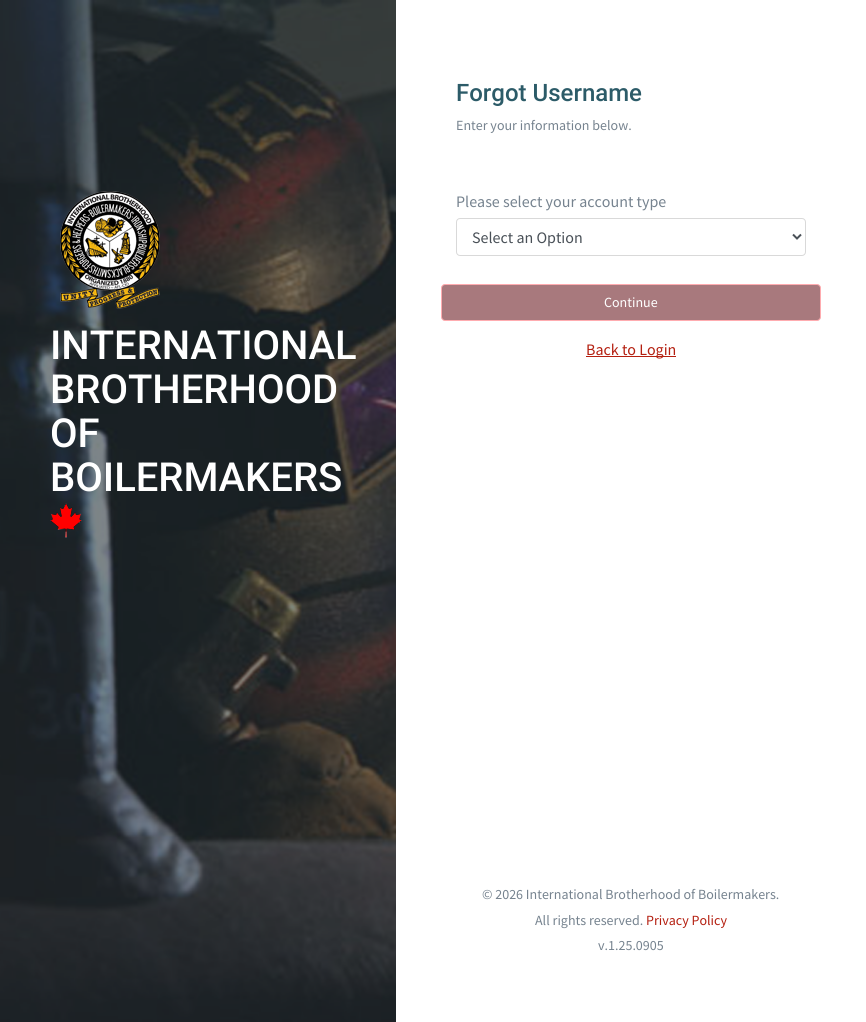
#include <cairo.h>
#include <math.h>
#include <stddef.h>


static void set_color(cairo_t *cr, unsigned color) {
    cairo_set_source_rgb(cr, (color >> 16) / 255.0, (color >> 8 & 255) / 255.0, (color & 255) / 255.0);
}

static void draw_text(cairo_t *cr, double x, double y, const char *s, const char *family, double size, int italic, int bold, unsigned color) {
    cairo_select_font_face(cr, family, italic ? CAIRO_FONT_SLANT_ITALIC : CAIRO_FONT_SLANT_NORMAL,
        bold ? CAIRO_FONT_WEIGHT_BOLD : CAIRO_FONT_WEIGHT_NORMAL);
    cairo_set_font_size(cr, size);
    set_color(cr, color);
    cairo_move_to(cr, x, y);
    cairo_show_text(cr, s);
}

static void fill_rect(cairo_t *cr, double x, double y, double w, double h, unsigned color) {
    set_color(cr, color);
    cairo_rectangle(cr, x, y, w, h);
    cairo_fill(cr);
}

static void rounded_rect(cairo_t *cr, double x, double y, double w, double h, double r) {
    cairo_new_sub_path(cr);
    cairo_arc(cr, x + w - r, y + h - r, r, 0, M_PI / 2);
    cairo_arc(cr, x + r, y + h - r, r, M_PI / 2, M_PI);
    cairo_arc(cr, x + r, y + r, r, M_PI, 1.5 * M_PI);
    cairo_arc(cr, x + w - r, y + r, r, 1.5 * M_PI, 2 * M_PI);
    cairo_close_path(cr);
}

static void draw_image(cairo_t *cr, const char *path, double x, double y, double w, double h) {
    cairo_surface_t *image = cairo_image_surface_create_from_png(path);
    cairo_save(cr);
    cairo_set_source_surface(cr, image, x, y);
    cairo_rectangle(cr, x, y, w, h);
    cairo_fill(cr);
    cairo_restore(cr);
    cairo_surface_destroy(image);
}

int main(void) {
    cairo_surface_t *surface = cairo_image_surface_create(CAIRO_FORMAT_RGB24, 866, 1022);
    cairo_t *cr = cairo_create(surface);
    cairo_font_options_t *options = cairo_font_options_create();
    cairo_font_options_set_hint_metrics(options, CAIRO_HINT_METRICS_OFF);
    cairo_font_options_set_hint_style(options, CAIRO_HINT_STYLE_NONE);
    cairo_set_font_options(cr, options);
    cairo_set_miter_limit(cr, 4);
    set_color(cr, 0xFFFFFF);
    cairo_paint(cr);
    draw_image(cr, "assets/img1.png", 0, 0, 396, 1022);
    draw_image(cr, "assets/img2.png", 60, 191, 100, 118);
    draw_text(cr, 50, 359, "INTERNATIONAL", "Roboto Medium", 40, 0, 0, 0xFFFFFF);
    draw_text(cr, 50, 403, "BROTHERHOOD", "Roboto Medium", 40, 0, 0, 0xFFFFFF);
    draw_text(cr, 50, 447, "OF", "Roboto Medium", 40, 0, 0, 0xFFFFFF);
    draw_text(cr, 50, 491, "BOILERMAKERS", "Roboto Medium", 40, 0, 0, 0xFFFFFF);
    draw_image(cr, "assets/img3.png", 50, 503, 32, 35);
    draw_text(cr, 456, 101, "Forgot Username", "Roboto Medium", 24, 0, 0, 0x2C5B68);
    draw_text(cr, 456, 130, "Enter your information below.", "Source Sans Pro", 14, 0, 0, 0x76838F);
    draw_text(cr, 456, 207, "Please select your account type", "Source Sans Pro", 16, 0, 0, 0x76838F);
    rounded_rect(cr, 456.5, 218.5, 349, 37, 3.5);
    set_color(cr, 0xD9D9D9);
    cairo_set_line_width(cr, 1);
    cairo_stroke(cr);
    cairo_new_path(cr);
    cairo_move_to(cr, 793, 234.5);
    cairo_line_to(cr, 797, 238.5);
    cairo_line_to(cr, 801, 234.5);
    set_color(cr, 0x495057);
    cairo_set_line_width(cr, 2);
    cairo_stroke(cr);
    draw_text(cr, 472, 243, "Select an Option", "Source Sans Pro", 16, 0, 0, 0x495057);
    set_color(cr, 0xA8797D);
    rounded_rect(cr, 441.5, 284.5, 379, 36, 3.5);
    cairo_fill_preserve(cr);
    set_color(cr, 0xFFACB0);
    cairo_set_line_width(cr, 1);
    cairo_stroke(cr);
    draw_text(cr, 604, 307, "Continue", "Source Sans Pro", 14, 0, 0, 0xFFFFFF);
    fill_rect(cr, 586, 356, 90, 1, 0xB41F10);
    draw_text(cr, 586, 355, "Back to Login", "Source Sans Pro", 16, 0, 0, 0xB41F10);
    draw_text(cr, 482, 899, "© 2026 International Brotherhood of Boilermakers.", "Source Sans Pro", 14, 0, 0, 0x76838F);
    draw_text(cr, 535, 925, "All rights reserved.", "Source Sans Pro", 14, 0, 0, 0x76838F);
    draw_text(cr, 646, 925, "Privacy Policy", "Source Sans Pro", 14, 0, 0, 0xB41F10);
    draw_text(cr, 598, 950, "v.1.25.0905", "Source Sans Pro", 14, 0, 0, 0x76838F);
    cairo_surface_write_to_png(surface, "output.png");
    cairo_font_options_destroy(options);
    cairo_destroy(cr);
    cairo_surface_destroy(surface);
    return 0;
}
